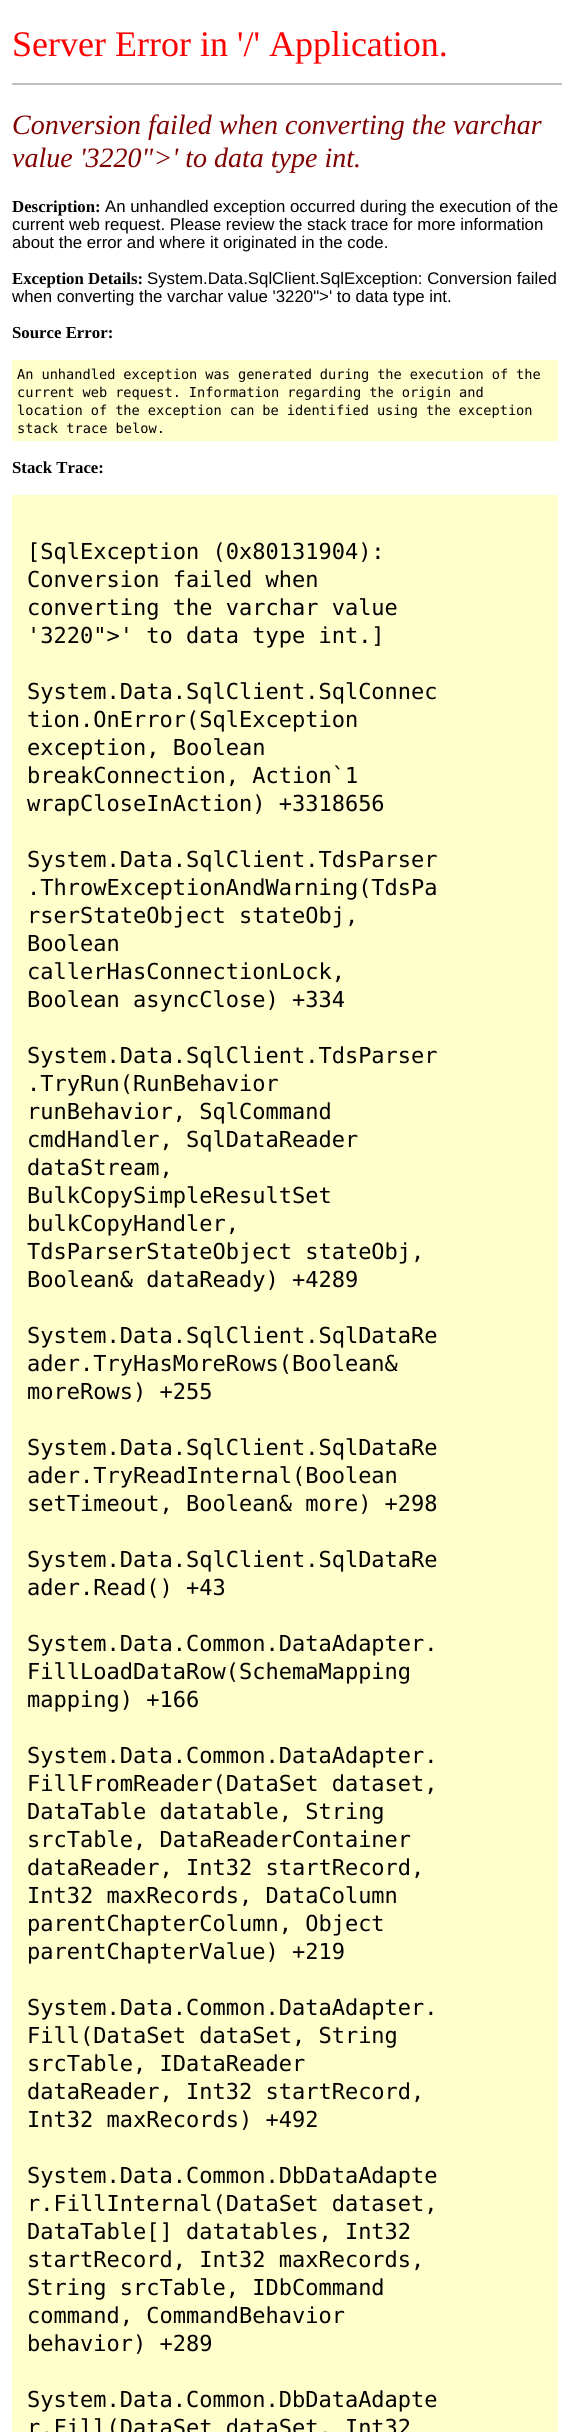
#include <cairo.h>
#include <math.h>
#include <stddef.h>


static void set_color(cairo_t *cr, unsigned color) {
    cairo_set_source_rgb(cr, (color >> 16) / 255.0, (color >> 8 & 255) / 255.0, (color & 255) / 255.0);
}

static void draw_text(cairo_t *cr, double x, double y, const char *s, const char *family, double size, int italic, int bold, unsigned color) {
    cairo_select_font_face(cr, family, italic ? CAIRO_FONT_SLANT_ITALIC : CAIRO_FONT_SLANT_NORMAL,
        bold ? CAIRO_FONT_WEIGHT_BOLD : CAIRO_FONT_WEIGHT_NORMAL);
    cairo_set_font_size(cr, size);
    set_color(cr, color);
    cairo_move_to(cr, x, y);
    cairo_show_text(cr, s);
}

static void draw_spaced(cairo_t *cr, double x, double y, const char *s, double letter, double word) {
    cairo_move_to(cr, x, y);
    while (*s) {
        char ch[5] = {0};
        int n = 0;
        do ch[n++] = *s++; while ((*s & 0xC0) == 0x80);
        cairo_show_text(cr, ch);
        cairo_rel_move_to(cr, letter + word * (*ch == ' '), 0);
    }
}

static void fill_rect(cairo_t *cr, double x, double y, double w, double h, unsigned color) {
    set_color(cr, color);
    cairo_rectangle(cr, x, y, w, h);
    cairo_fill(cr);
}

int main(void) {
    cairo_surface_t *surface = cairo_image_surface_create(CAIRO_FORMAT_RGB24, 569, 2432);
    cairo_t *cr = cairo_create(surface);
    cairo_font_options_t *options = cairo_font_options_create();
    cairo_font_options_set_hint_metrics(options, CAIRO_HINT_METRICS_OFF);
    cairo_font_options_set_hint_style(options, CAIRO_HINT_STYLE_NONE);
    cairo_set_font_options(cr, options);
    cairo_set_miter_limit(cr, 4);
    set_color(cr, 0xFFFFFF);
    cairo_paint(cr);
    draw_text(cr, 12, 56, "Server Error in '/' Application.", "Liberation Serif", 36, 0, 0, 0xFF0000);
    fill_rect(cr, 12, 83, 550, 2, 0xC0C0C0);
    draw_text(cr, 12, 134, "Conversion failed when converting the varchar", "Liberation Serif", 28, 1, 0, 0x800000);
    draw_text(cr, 12, 167, "value '3220\">' to data type int.", "Liberation Serif", 28, 1, 0, 0x800000);
    draw_text(cr, 12, 212, "Description:", "Liberation Serif", 16.8, 0, 1, 0x000000);
    draw_text(cr, 105, 212, "An unhandled exception occurred during the execution of the", "Liberation Sans", 16.8, 0, 0, 0x000000);
    draw_text(cr, 12, 230, "current web request. Please review the stack trace for more information", "Liberation Sans", 16.8, 0, 0, 0x000000);
    draw_text(cr, 12, 248, "about the error and where it originated in the code.", "Liberation Sans", 16.8, 0, 0, 0x000000);
    draw_text(cr, 12, 284, "Exception Details:", "Liberation Serif", 16.8, 0, 1, 0x000000);
    draw_text(cr, 147, 284, "System.Data.SqlClient.SqlException: Conversion failed", "Liberation Sans", 16.8, 0, 0, 0x000000);
    draw_text(cr, 12, 302, "when converting the varchar value '3220\">' to data type int.", "Liberation Sans", 16.8, 0, 0, 0x000000);
    draw_text(cr, 12, 338, "Source Error:", "Liberation Serif", 16.8, 0, 1, 0x000000);
    fill_rect(cr, 12, 360, 546, 81, 0xFFFFCC);
    cairo_select_font_face(cr, "DejaVu Sans Mono", CAIRO_FONT_SLANT_NORMAL, CAIRO_FONT_WEIGHT_NORMAL);
    cairo_set_font_size(cr, 13.65);
    set_color(cr, 0x000000);
    draw_spaced(cr, 17, 379, "An unhandled exception was generated during the execution of the", 0, -0.25);
    draw_spaced(cr, 17, 397, "current web request. Information regarding the origin and", 0, -0.25);
    draw_spaced(cr, 17, 415, "location of the exception can be identified using the exception", 0, -0.25);
    draw_text(cr, 17, 433, "stack trace below.", "DejaVu Sans Mono", 13.65, 0, 0, 0x000000);
    draw_text(cr, 12, 473, "Stack Trace:", "Liberation Serif", 16.8, 0, 1, 0x000000);
    fill_rect(cr, 12, 495, 546, 1937, 0xFFFFCC);
    draw_text(cr, 27, 559, "[SqlException (0x80131904):", "DejaVu Sans Mono", 22, 0, 0, 0x000000);
    draw_text(cr, 27, 587, "Conversion failed when", "DejaVu Sans Mono", 22, 0, 0, 0x000000);
    draw_text(cr, 27, 615, "converting the varchar value", "DejaVu Sans Mono", 22, 0, 0, 0x000000);
    draw_text(cr, 27, 643, "'3220\">' to data type int.]", "DejaVu Sans Mono", 22, 0, 0, 0x000000);
    draw_text(cr, 27, 699, "System.Data.SqlClient.SqlConnec", "DejaVu Sans Mono", 22, 0, 0, 0x000000);
    draw_text(cr, 27, 727, "tion.OnError(SqlException", "DejaVu Sans Mono", 22, 0, 0, 0x000000);
    draw_text(cr, 27, 755, "exception, Boolean", "DejaVu Sans Mono", 22, 0, 0, 0x000000);
    draw_text(cr, 27, 783, "breakConnection, Action`1", "DejaVu Sans Mono", 22, 0, 0, 0x000000);
    draw_text(cr, 27, 811, "wrapCloseInAction) +3318656", "DejaVu Sans Mono", 22, 0, 0, 0x000000);
    draw_text(cr, 27, 867, "System.Data.SqlClient.TdsParser", "DejaVu Sans Mono", 22, 0, 0, 0x000000);
    draw_text(cr, 27, 895, ".ThrowExceptionAndWarning(TdsPa", "DejaVu Sans Mono", 22, 0, 0, 0x000000);
    draw_text(cr, 27, 923, "rserStateObject stateObj,", "DejaVu Sans Mono", 22, 0, 0, 0x000000);
    draw_text(cr, 27, 951, "Boolean", "DejaVu Sans Mono", 22, 0, 0, 0x000000);
    draw_text(cr, 27, 979, "callerHasConnectionLock,", "DejaVu Sans Mono", 22, 0, 0, 0x000000);
    draw_text(cr, 27, 1007, "Boolean asyncClose) +334", "DejaVu Sans Mono", 22, 0, 0, 0x000000);
    draw_text(cr, 27, 1063, "System.Data.SqlClient.TdsParser", "DejaVu Sans Mono", 22, 0, 0, 0x000000);
    draw_text(cr, 27, 1091, ".TryRun(RunBehavior", "DejaVu Sans Mono", 22, 0, 0, 0x000000);
    draw_text(cr, 27, 1119, "runBehavior, SqlCommand", "DejaVu Sans Mono", 22, 0, 0, 0x000000);
    draw_text(cr, 27, 1147, "cmdHandler, SqlDataReader", "DejaVu Sans Mono", 22, 0, 0, 0x000000);
    draw_text(cr, 27, 1175, "dataStream,", "DejaVu Sans Mono", 22, 0, 0, 0x000000);
    draw_text(cr, 27, 1203, "BulkCopySimpleResultSet", "DejaVu Sans Mono", 22, 0, 0, 0x000000);
    draw_text(cr, 27, 1231, "bulkCopyHandler,", "DejaVu Sans Mono", 22, 0, 0, 0x000000);
    draw_text(cr, 27, 1259, "TdsParserStateObject stateObj,", "DejaVu Sans Mono", 22, 0, 0, 0x000000);
    draw_text(cr, 27, 1287, "Boolean& dataReady) +4289", "DejaVu Sans Mono", 22, 0, 0, 0x000000);
    draw_text(cr, 27, 1343, "System.Data.SqlClient.SqlDataRe", "DejaVu Sans Mono", 22, 0, 0, 0x000000);
    draw_text(cr, 27, 1371, "ader.TryHasMoreRows(Boolean&", "DejaVu Sans Mono", 22, 0, 0, 0x000000);
    draw_text(cr, 27, 1399, "moreRows) +255", "DejaVu Sans Mono", 22, 0, 0, 0x000000);
    draw_text(cr, 27, 1455, "System.Data.SqlClient.SqlDataRe", "DejaVu Sans Mono", 22, 0, 0, 0x000000);
    draw_text(cr, 27, 1483, "ader.TryReadInternal(Boolean", "DejaVu Sans Mono", 22, 0, 0, 0x000000);
    draw_text(cr, 27, 1511, "setTimeout, Boolean& more) +298", "DejaVu Sans Mono", 22, 0, 0, 0x000000);
    draw_text(cr, 27, 1567, "System.Data.SqlClient.SqlDataRe", "DejaVu Sans Mono", 22, 0, 0, 0x000000);
    draw_text(cr, 27, 1595, "ader.Read() +43", "DejaVu Sans Mono", 22, 0, 0, 0x000000);
    draw_text(cr, 27, 1651, "System.Data.Common.DataAdapter.", "DejaVu Sans Mono", 22, 0, 0, 0x000000);
    draw_text(cr, 27, 1679, "FillLoadDataRow(SchemaMapping", "DejaVu Sans Mono", 22, 0, 0, 0x000000);
    draw_text(cr, 27, 1707, "mapping) +166", "DejaVu Sans Mono", 22, 0, 0, 0x000000);
    draw_text(cr, 27, 1763, "System.Data.Common.DataAdapter.", "DejaVu Sans Mono", 22, 0, 0, 0x000000);
    draw_text(cr, 27, 1791, "FillFromReader(DataSet dataset,", "DejaVu Sans Mono", 22, 0, 0, 0x000000);
    draw_text(cr, 27, 1819, "DataTable datatable, String", "DejaVu Sans Mono", 22, 0, 0, 0x000000);
    draw_text(cr, 27, 1847, "srcTable, DataReaderContainer", "DejaVu Sans Mono", 22, 0, 0, 0x000000);
    draw_text(cr, 27, 1875, "dataReader, Int32 startRecord,", "DejaVu Sans Mono", 22, 0, 0, 0x000000);
    draw_text(cr, 27, 1903, "Int32 maxRecords, DataColumn", "DejaVu Sans Mono", 22, 0, 0, 0x000000);
    draw_text(cr, 27, 1931, "parentChapterColumn, Object", "DejaVu Sans Mono", 22, 0, 0, 0x000000);
    draw_text(cr, 27, 1959, "parentChapterValue) +219", "DejaVu Sans Mono", 22, 0, 0, 0x000000);
    draw_text(cr, 27, 2015, "System.Data.Common.DataAdapter.", "DejaVu Sans Mono", 22, 0, 0, 0x000000);
    draw_text(cr, 27, 2043, "Fill(DataSet dataSet, String", "DejaVu Sans Mono", 22, 0, 0, 0x000000);
    draw_text(cr, 27, 2071, "srcTable, IDataReader", "DejaVu Sans Mono", 22, 0, 0, 0x000000);
    draw_text(cr, 27, 2099, "dataReader, Int32 startRecord,", "DejaVu Sans Mono", 22, 0, 0, 0x000000);
    draw_text(cr, 27, 2127, "Int32 maxRecords) +492", "DejaVu Sans Mono", 22, 0, 0, 0x000000);
    draw_text(cr, 27, 2183, "System.Data.Common.DbDataAdapte", "DejaVu Sans Mono", 22, 0, 0, 0x000000);
    draw_text(cr, 27, 2211, "r.FillInternal(DataSet dataset,", "DejaVu Sans Mono", 22, 0, 0, 0x000000);
    draw_text(cr, 27, 2239, "DataTable[] datatables, Int32", "DejaVu Sans Mono", 22, 0, 0, 0x000000);
    draw_text(cr, 27, 2267, "startRecord, Int32 maxRecords,", "DejaVu Sans Mono", 22, 0, 0, 0x000000);
    draw_text(cr, 27, 2295, "String srcTable, IDbCommand", "DejaVu Sans Mono", 22, 0, 0, 0x000000);
    draw_text(cr, 27, 2323, "command, CommandBehavior", "DejaVu Sans Mono", 22, 0, 0, 0x000000);
    draw_text(cr, 27, 2351, "behavior) +289", "DejaVu Sans Mono", 22, 0, 0, 0x000000);
    draw_text(cr, 27, 2407, "System.Data.Common.DbDataAdapte", "DejaVu Sans Mono", 22, 0, 0, 0x000000);
    draw_text(cr, 27, 2435, "r.Fill(DataSet dataSet, Int32", "DejaVu Sans Mono", 22, 0, 0, 0x000000);
    cairo_surface_write_to_png(surface, "output.png");
    cairo_font_options_destroy(options);
    cairo_destroy(cr);
    cairo_surface_destroy(surface);
    return 0;
}
